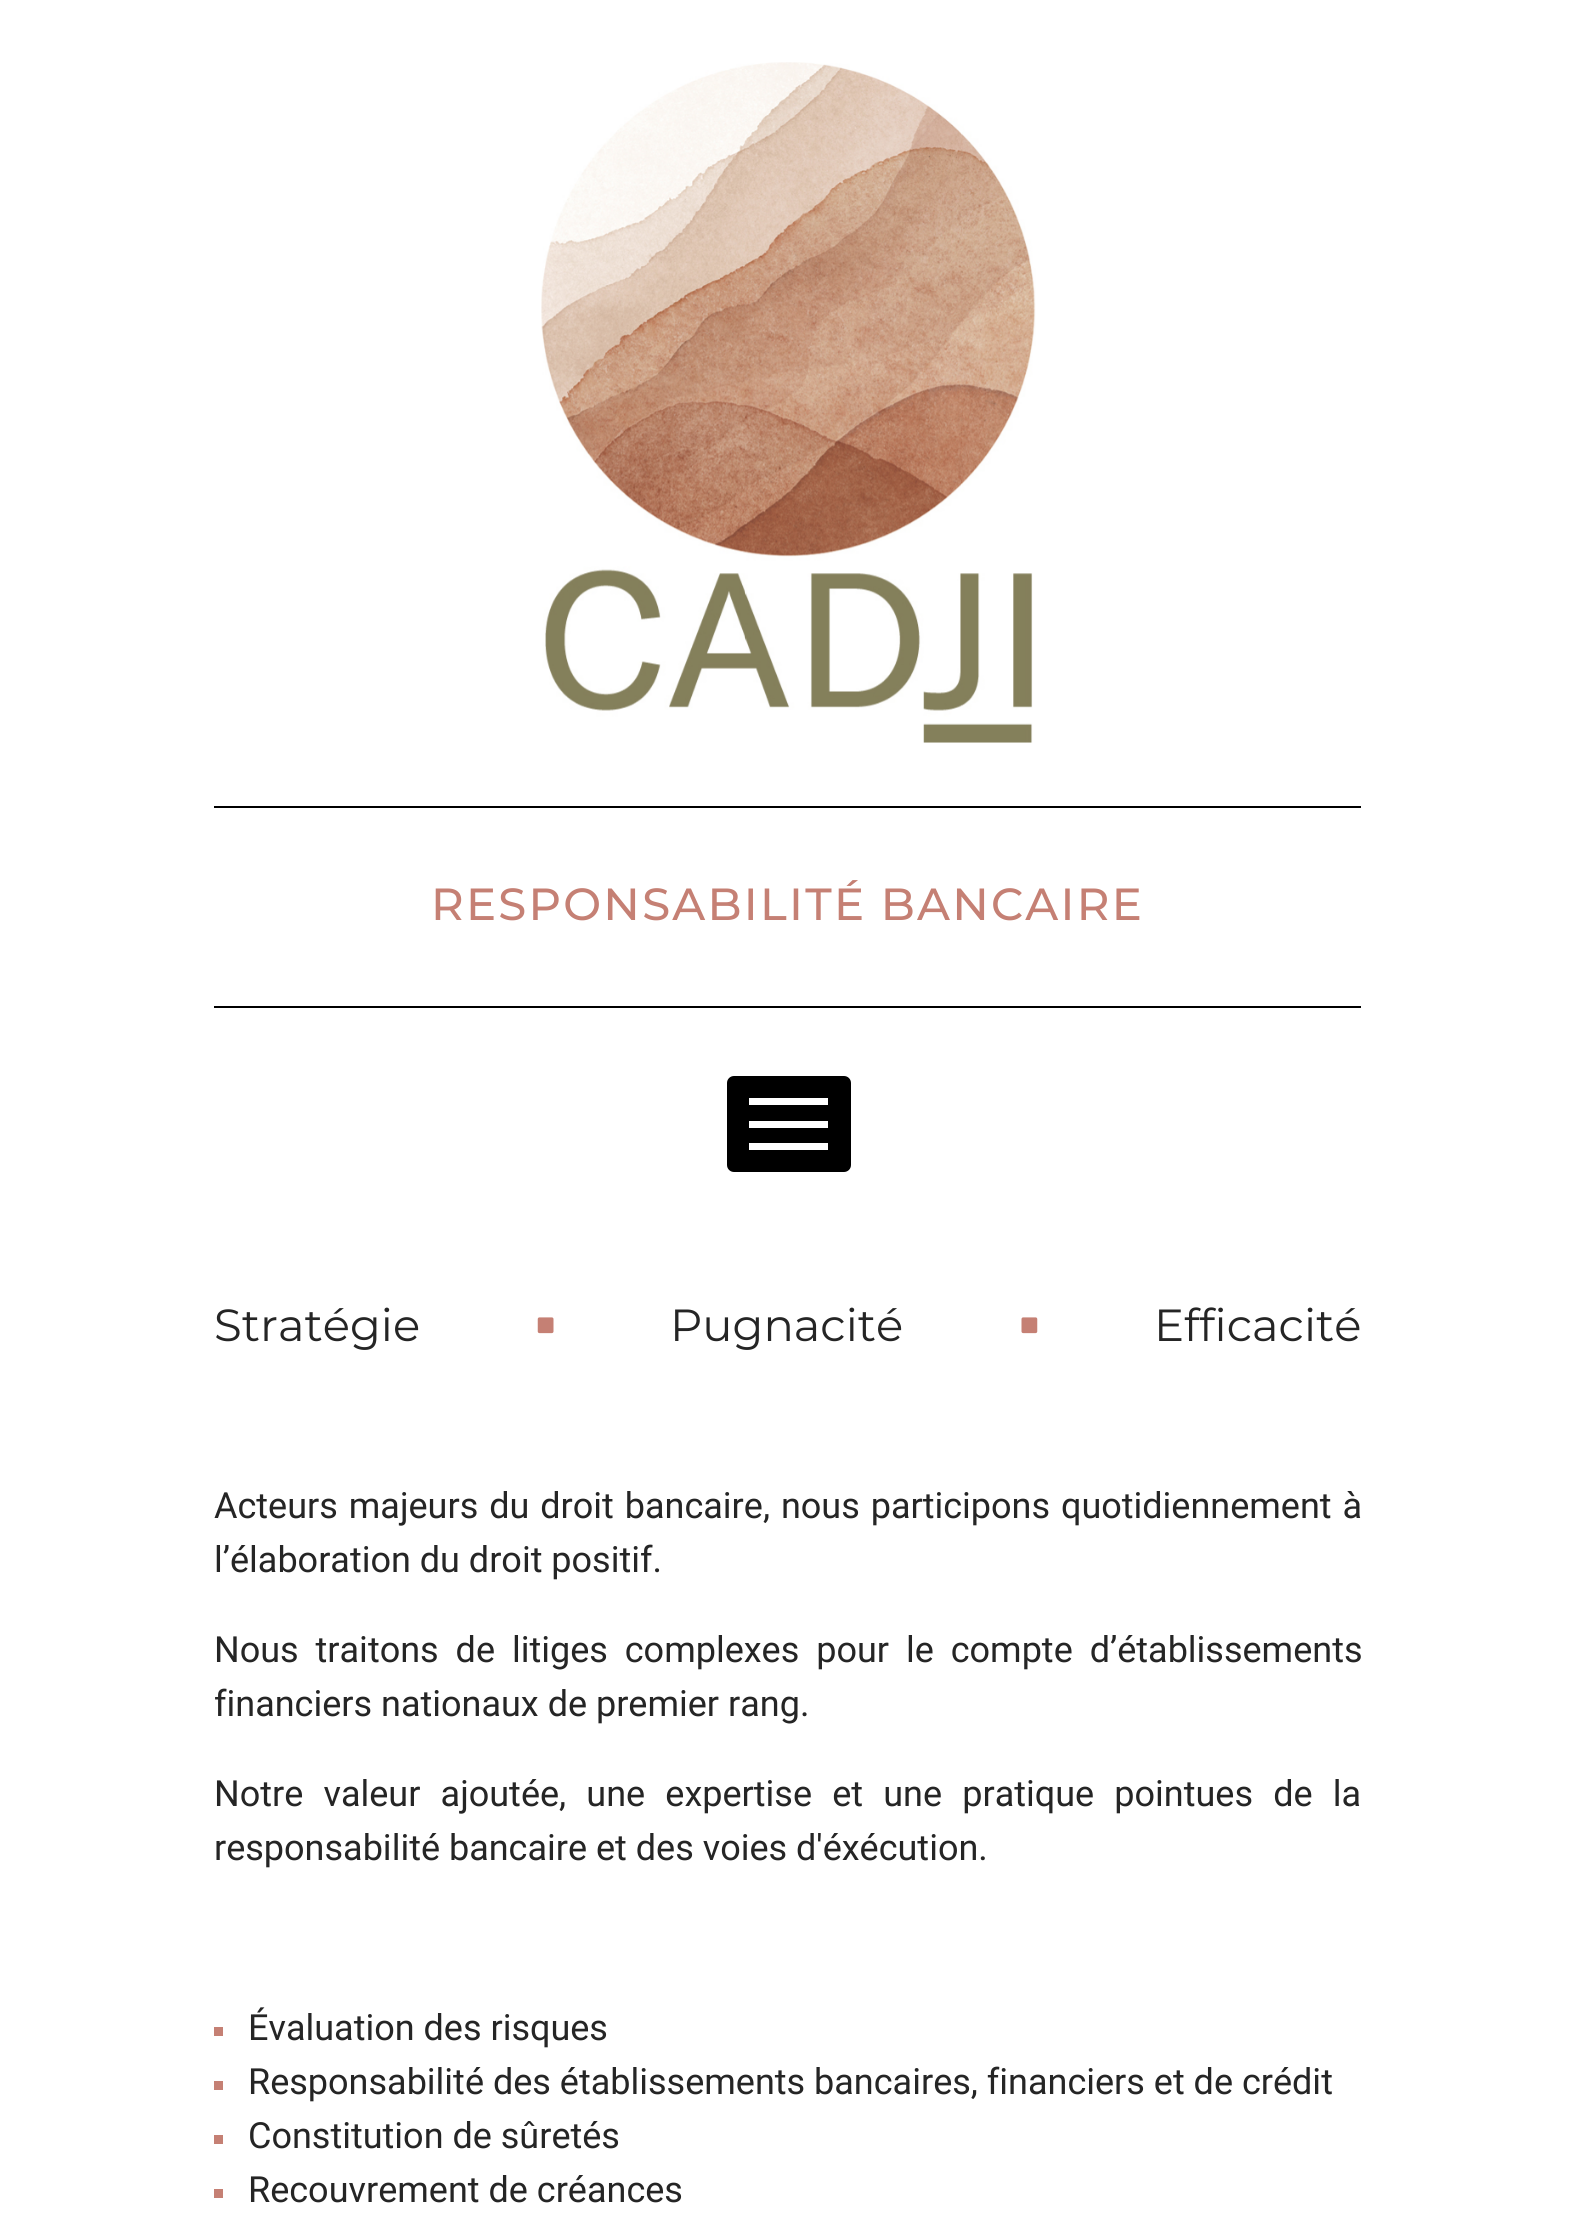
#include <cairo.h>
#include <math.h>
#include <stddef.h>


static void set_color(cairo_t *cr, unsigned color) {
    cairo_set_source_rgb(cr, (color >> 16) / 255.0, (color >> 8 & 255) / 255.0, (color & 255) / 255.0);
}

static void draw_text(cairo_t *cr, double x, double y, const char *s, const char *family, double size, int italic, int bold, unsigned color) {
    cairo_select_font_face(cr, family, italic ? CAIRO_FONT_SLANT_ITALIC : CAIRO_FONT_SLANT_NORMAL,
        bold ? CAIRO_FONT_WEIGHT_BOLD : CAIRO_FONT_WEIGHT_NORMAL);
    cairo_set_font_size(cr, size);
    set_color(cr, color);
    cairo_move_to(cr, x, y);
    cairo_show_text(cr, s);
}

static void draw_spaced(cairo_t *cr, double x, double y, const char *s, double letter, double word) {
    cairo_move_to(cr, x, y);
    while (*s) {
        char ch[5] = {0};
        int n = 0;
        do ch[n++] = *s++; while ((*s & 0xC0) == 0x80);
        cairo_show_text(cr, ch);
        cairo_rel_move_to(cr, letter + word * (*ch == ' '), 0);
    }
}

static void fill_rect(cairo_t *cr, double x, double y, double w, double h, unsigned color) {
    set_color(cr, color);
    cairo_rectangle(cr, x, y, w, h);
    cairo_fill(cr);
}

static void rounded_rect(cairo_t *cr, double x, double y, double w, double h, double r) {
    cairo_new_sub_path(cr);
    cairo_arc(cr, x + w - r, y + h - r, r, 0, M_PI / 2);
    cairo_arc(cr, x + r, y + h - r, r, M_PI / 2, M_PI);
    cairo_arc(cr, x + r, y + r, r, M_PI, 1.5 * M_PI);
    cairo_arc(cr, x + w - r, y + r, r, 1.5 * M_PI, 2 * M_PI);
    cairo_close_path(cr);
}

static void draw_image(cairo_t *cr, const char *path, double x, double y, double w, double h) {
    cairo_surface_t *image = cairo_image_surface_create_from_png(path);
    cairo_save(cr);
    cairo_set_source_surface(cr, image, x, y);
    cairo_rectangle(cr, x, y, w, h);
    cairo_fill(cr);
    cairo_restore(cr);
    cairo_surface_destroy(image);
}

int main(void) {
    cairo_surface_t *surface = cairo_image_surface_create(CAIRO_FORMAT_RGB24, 1573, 2225);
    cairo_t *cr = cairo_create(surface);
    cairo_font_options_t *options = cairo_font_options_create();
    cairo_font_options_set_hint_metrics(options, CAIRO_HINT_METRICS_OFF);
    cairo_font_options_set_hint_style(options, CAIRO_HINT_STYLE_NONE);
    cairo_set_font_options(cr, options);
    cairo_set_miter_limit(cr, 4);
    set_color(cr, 0xFFFFFF);
    cairo_paint(cr);
    draw_image(cr, "assets/img1.png", 541, 62, 495, 681);
    fill_rect(cr, 214, 806, 1147, 2, 0x000000);
    fill_rect(cr, 214, 1006, 1147, 2, 0x000000);
    cairo_select_font_face(cr, "Montserrat Medium", CAIRO_FONT_SLANT_NORMAL, CAIRO_FONT_WEIGHT_NORMAL);
    cairo_set_font_size(cr, 45);
    set_color(cr, 0xC58074);
    draw_spaced(cr, 431, 920, "RESPONSABILITÉ BANCAIRE", 2.25, 0);
    set_color(cr, 0x000000);
    rounded_rect(cr, 727, 1076, 124, 96, 7);
    cairo_fill(cr);
    fill_rect(cr, 749, 1098, 79, 7, 0xFFFFFF);
    fill_rect(cr, 749, 1121, 79, 7, 0xFFFFFF);
    fill_rect(cr, 749, 1143, 79, 7, 0xFFFFFF);
    draw_text(cr, 214, 1341, "Stratégie", "Montserrat", 45, 0, 0, 0x252525);
    draw_image(cr, "assets/img2.png", 537, 1317, 17, 17);
    draw_text(cr, 670, 1341, "Pugnacité", "Montserrat", 45, 0, 0, 0x252525);
    draw_image(cr, "assets/img3.png", 1021, 1317, 17, 17);
    draw_text(cr, 1154, 1341, "Efficacité", "Montserrat", 45, 0, 0, 0x252525);
    cairo_select_font_face(cr, "Roboto", CAIRO_FONT_SLANT_NORMAL, CAIRO_FONT_WEIGHT_NORMAL);
    cairo_set_font_size(cr, 36);
    draw_spaced(cr, 214, 1518, "Acteurs majeurs du droit bancaire, nous participons quotidiennement à", 0, 2);
    draw_text(cr, 214, 1572, "l’élaboration du droit positif.", "Roboto", 36, 0, 0, 0x252525);
    draw_spaced(cr, 214, 1662, "Nous traitons de litiges complexes pour le compte d’établissements", 0, 8);
    draw_text(cr, 214, 1716, "financiers nationaux de premier rang.", "Roboto", 36, 0, 0, 0x252525);
    draw_spaced(cr, 214, 1806, "Notre valeur ajoutée, une expertise et une pratique pointues de la", 0, 11.25);
    draw_text(cr, 214, 1860, "responsabilité bancaire et des voies d'éxécution.", "Roboto", 36, 0, 0, 0x252525);
    fill_rect(cr, 214, 2027, 9, 9, 0xC58074);
    draw_text(cr, 248, 2040, "Évaluation des risques", "Roboto", 36, 0, 0, 0x252525);
    fill_rect(cr, 214, 2081, 9, 9, 0xC58074);
    draw_text(cr, 248, 2094, "Responsabilité des établissements bancaires, financiers et de crédit", "Roboto", 36, 0, 0, 0x252525);
    fill_rect(cr, 214, 2135, 9, 9, 0xC58074);
    draw_text(cr, 248, 2148, "Constitution de sûretés", "Roboto", 36, 0, 0, 0x252525);
    fill_rect(cr, 214, 2189, 9, 9, 0xC58074);
    draw_text(cr, 248, 2202, "Recouvrement de créances", "Roboto", 36, 0, 0, 0x252525);
    cairo_surface_write_to_png(surface, "output.png");
    cairo_font_options_destroy(options);
    cairo_destroy(cr);
    cairo_surface_destroy(surface);
    return 0;
}
